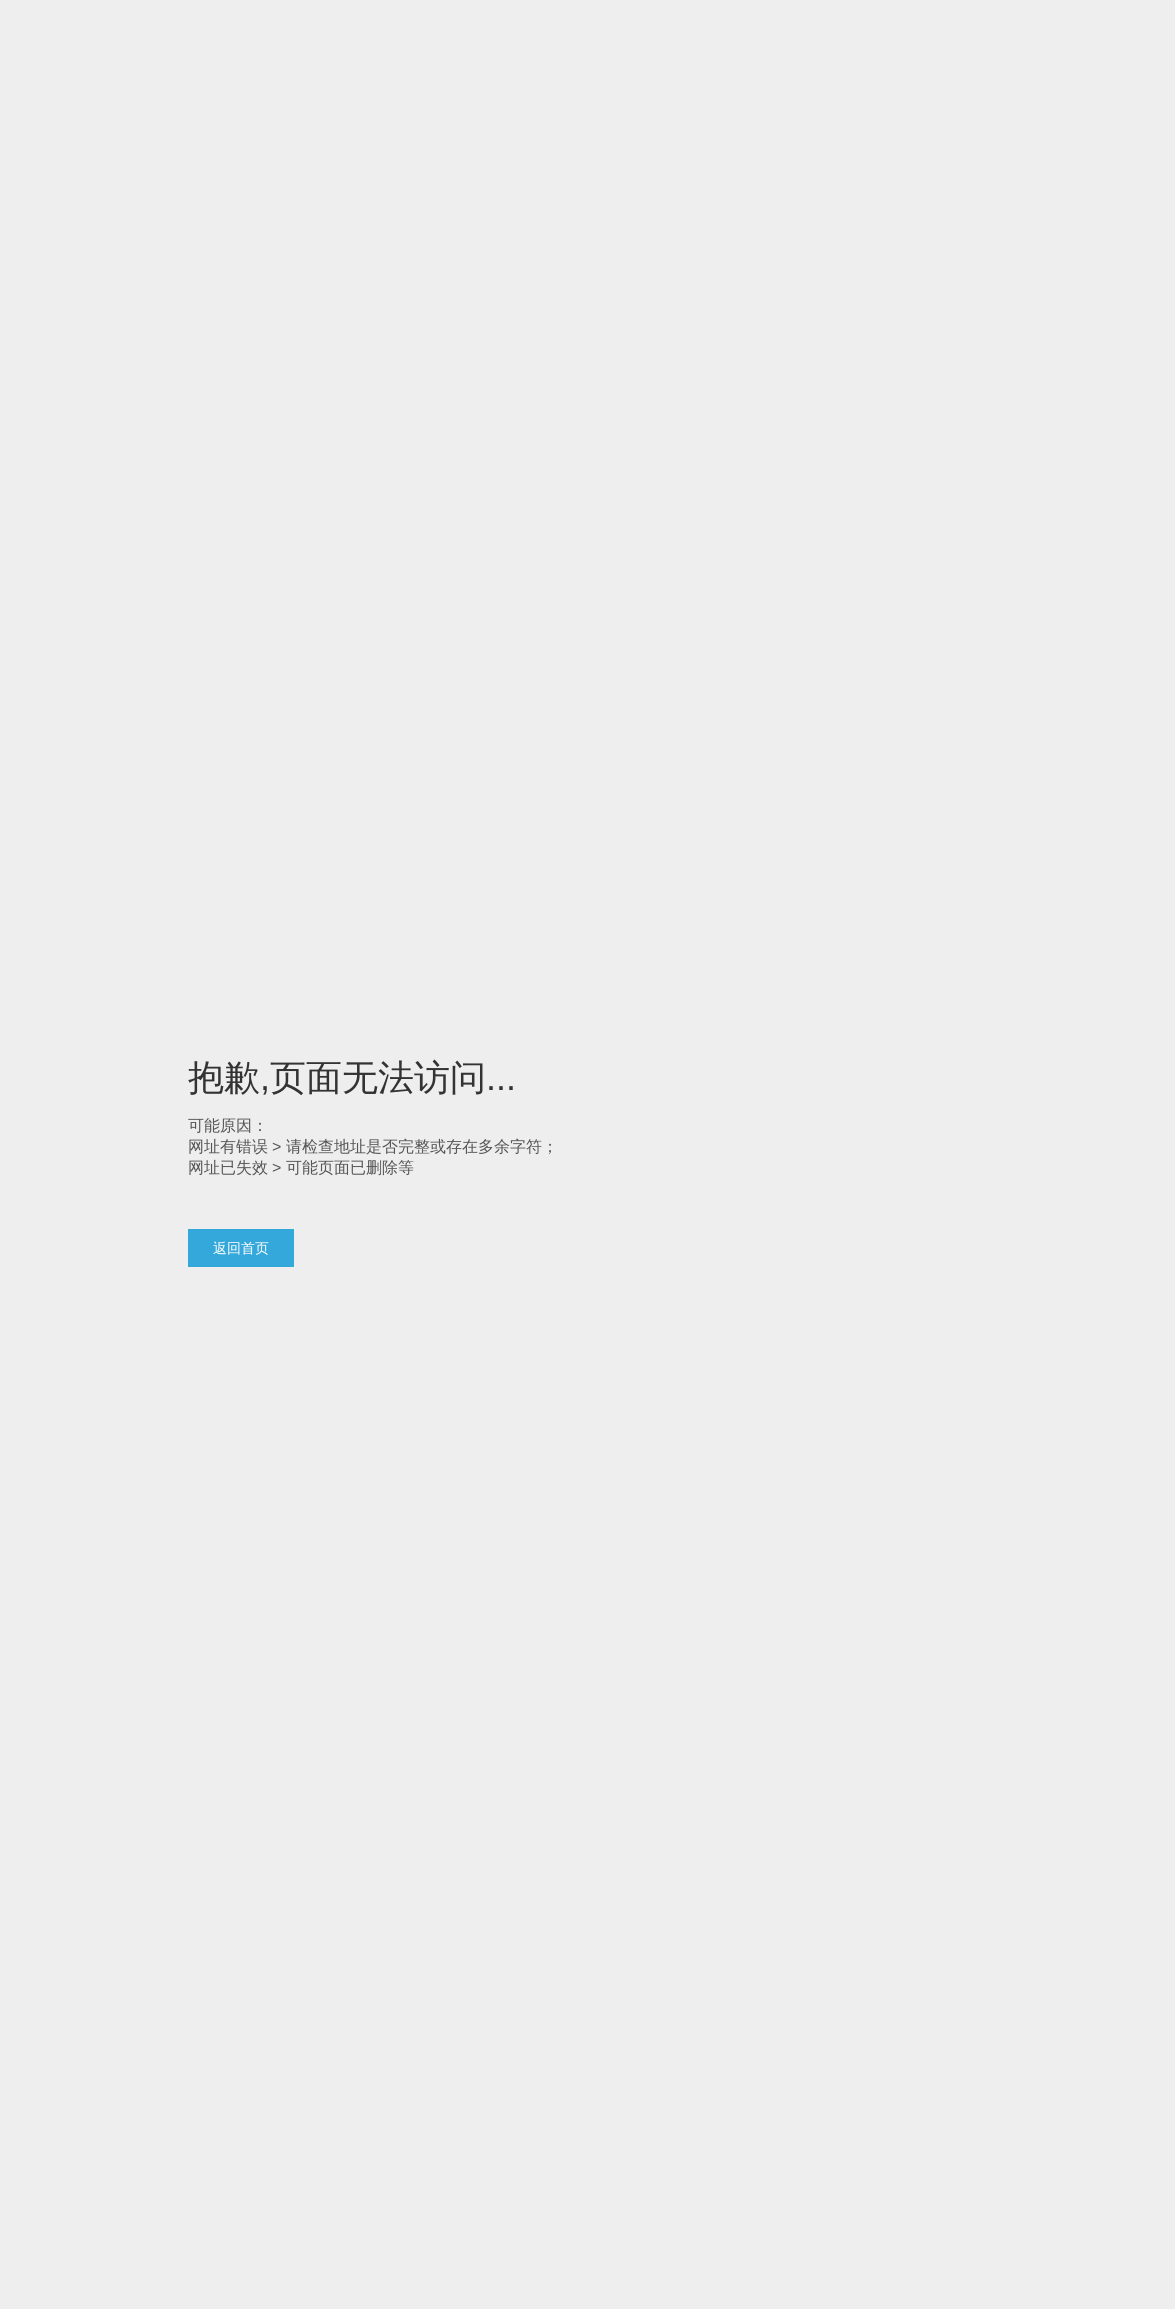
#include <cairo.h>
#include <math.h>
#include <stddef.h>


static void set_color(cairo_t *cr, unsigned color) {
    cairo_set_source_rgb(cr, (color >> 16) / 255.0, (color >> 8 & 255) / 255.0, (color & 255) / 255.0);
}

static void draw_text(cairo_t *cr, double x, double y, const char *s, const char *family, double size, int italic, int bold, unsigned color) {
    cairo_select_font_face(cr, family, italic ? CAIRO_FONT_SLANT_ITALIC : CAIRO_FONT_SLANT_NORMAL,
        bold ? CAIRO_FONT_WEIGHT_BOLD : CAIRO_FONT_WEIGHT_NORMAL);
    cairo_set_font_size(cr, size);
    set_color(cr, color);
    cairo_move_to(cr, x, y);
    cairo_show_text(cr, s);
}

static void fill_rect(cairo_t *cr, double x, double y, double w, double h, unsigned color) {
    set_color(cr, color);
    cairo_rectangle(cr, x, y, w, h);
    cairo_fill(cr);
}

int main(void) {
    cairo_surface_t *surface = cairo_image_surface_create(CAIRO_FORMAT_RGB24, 1175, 2309);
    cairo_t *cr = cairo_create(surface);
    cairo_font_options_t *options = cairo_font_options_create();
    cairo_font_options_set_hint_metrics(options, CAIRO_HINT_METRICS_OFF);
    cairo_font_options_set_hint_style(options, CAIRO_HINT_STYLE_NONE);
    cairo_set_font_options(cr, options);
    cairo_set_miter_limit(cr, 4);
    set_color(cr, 0xEEEEEE);
    cairo_paint(cr);
    draw_text(cr, 188, 1090, "抱歉", "WenQuanYi Zen Hei Medium", 36, 0, 0, 0x333333);
    draw_text(cr, 260, 1090, ",", "Liberation Sans", 36, 0, 0, 0x333333);
    draw_text(cr, 270, 1090, "页面无法访问", "WenQuanYi Zen Hei Medium", 36, 0, 0, 0x333333);
    draw_text(cr, 486, 1090, "...", "Liberation Sans", 36, 0, 0, 0x333333);
    draw_text(cr, 188, 1131, "可能原因：", "WenQuanYi Zen Hei Medium", 16, 0, 0, 0x555555);
    draw_text(cr, 188, 1152, "网址有错误", "WenQuanYi Zen Hei Medium", 16, 0, 0, 0x555555);
    draw_text(cr, 272, 1152, ">", "Liberation Sans", 16, 0, 0, 0x555555);
    draw_text(cr, 286, 1152, "请检查地址是否完整或存在多余字符；", "WenQuanYi Zen Hei Medium", 16, 0, 0, 0x555555);
    draw_text(cr, 188, 1173, "网址已失效", "WenQuanYi Zen Hei Medium", 16, 0, 0, 0x555555);
    draw_text(cr, 272, 1173, ">", "Liberation Sans", 16, 0, 0, 0x555555);
    draw_text(cr, 286, 1173, "可能页面已删除等", "WenQuanYi Zen Hei Medium", 16, 0, 0, 0x555555);
    fill_rect(cr, 188, 1229, 106, 38, 0x35A8DB);
    draw_text(cr, 213, 1253, "返回首页", "WenQuanYi Zen Hei Medium", 14, 0, 0, 0xFFFFFF);
    cairo_surface_write_to_png(surface, "output.png");
    cairo_font_options_destroy(options);
    cairo_destroy(cr);
    cairo_surface_destroy(surface);
    return 0;
}
